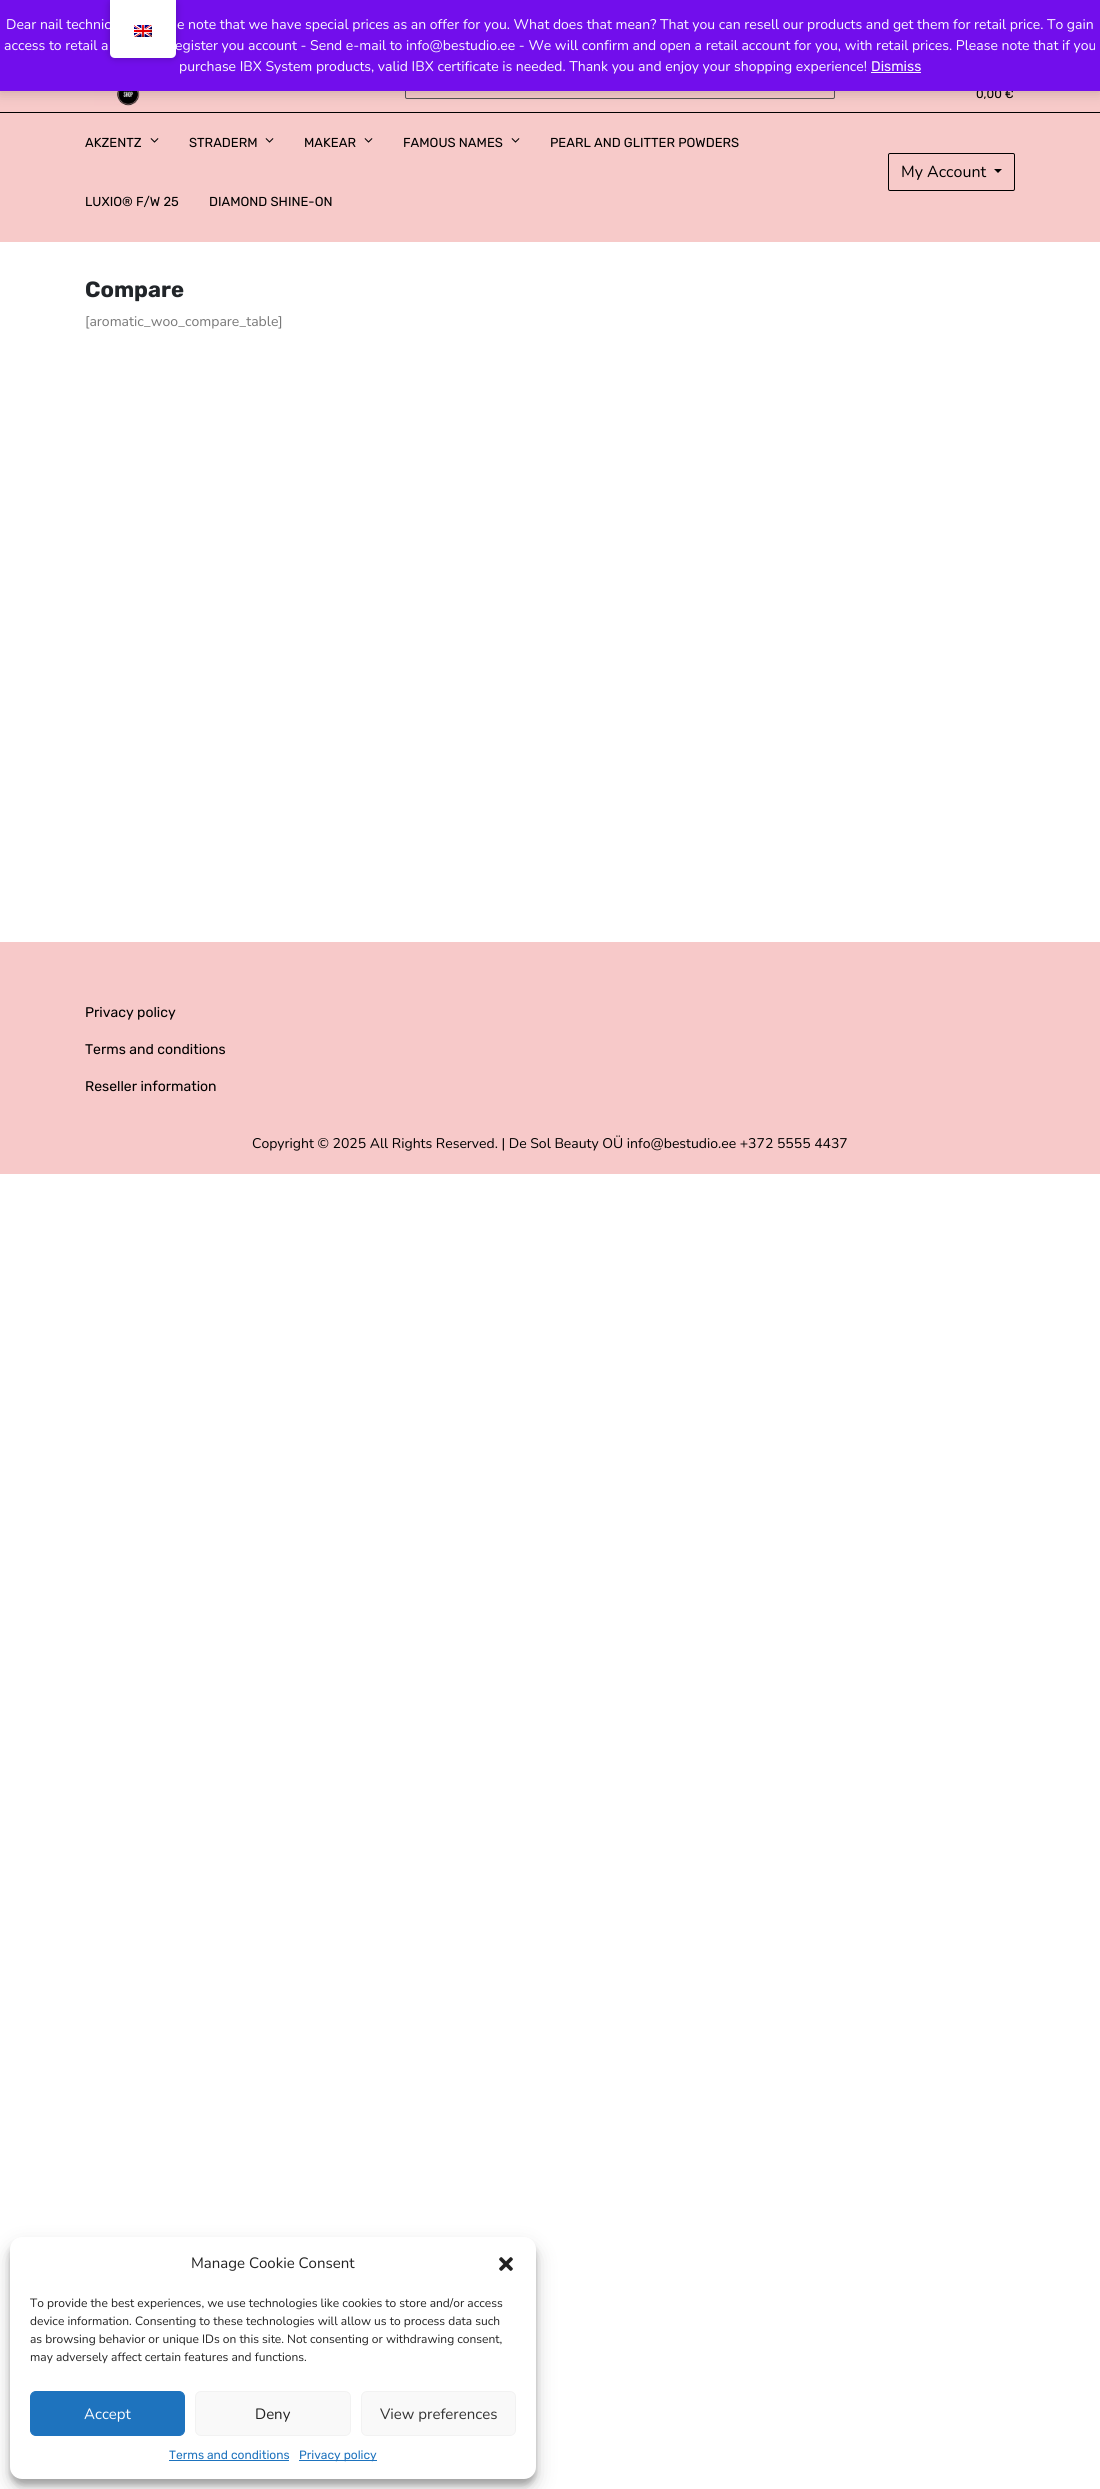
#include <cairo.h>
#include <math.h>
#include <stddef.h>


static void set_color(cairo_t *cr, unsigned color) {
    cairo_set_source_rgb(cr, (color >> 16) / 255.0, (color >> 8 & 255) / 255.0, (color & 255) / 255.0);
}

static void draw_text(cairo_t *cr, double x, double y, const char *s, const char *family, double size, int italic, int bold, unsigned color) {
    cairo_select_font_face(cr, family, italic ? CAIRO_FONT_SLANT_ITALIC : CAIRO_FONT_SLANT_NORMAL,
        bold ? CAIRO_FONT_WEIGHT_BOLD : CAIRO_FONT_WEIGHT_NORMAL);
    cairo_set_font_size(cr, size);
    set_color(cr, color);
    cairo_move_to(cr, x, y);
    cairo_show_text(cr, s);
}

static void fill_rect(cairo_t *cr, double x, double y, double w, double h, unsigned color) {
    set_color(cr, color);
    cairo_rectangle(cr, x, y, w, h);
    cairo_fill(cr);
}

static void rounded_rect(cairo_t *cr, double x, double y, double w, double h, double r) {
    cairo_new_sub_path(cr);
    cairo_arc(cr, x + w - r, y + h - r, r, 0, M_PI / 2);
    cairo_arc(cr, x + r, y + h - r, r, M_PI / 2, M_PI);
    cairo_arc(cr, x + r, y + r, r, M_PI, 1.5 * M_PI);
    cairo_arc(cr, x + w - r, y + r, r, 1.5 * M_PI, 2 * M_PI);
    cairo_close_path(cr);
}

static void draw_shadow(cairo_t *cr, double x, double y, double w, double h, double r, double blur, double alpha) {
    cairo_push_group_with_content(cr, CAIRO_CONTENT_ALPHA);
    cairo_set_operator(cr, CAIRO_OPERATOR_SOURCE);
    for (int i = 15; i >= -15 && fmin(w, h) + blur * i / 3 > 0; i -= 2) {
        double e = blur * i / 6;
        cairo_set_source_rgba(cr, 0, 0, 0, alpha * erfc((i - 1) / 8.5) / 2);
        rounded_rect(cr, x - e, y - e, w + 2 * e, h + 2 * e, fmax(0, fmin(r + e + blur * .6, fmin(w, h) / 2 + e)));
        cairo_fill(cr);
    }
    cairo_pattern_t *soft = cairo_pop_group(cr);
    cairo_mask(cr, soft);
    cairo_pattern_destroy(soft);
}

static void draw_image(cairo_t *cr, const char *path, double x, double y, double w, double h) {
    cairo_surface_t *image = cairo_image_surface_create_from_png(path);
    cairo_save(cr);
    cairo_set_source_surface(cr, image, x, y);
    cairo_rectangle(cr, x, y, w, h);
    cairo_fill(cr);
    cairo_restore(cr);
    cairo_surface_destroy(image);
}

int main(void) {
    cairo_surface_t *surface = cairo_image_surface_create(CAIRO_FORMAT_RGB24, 1100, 2489);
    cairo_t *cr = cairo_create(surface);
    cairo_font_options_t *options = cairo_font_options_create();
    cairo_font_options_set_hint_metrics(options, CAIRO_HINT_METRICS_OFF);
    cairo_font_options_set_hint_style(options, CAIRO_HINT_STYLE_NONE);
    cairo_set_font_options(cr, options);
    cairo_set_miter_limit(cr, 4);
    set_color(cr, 0xFFFFFF);
    cairo_paint(cr);
    fill_rect(cr, 0, 91, 1100, 151, 0xF7CAC9);
    draw_image(cr, "assets/img2.png", 94, 91, 46, 15);
    rounded_rect(cr, 405.5, 62.5, 429, 36, 1.5);
    set_color(cr, 0x565656);
    cairo_set_line_width(cr, 1);
    cairo_stroke(cr);
    fill_rect(cr, 0, 112, 1100, 1, 0x000000);
    set_color(cr, 0x000000);
    draw_shadow(cr, 0, 1, 1100, 91, 0, 7, 0.2);
    draw_text(cr, 976, 98, "0,00 €", "Rubik", 12, 0, 0, 0x000000);
    fill_rect(cr, 0, 0, 1100, 91, 0x720EEC);
    set_color(cr, 0x000000);
    draw_shadow(cr, 110, 0, 66, 58, 5, 4, 0.25);
    draw_text(cr, 6, 29, "Dear nail technic", "Nunito", 14, 0, 0, 0xFCFBFE);
    draw_text(cr, 175, 50, "egister you account - Send e-mail to info@bestudio.ee - We will confirm and open a retail account for you, with retail prices. Please note that if you", "Nunito", 14, 0, 0, 0xFCFBFE);
    set_color(cr, 0xFFFFFF);
    cairo_new_path(cr);
    cairo_move_to(cr, 110, 0);
    cairo_line_to(cr, 176, 0);
    cairo_line_to(cr, 176, 53);
    cairo_curve_to(cr, 176, 56, 174, 58, 171, 58);
    cairo_line_to(cr, 115, 58);
    cairo_curve_to(cr, 112, 58, 110, 56, 110, 53);
    cairo_close_path(cr);
    cairo_fill(cr);
    draw_image(cr, "assets/img1.png", 134, 25, 18, 12);
    draw_text(cr, 177, 29, "e note that we have special prices as an offer for you. What does that mean? That you can resell our products and get them for retail price. To gain", "Nunito", 14, 0, 0, 0xFCFBFE);
    draw_text(cr, 4, 50, "access to retail a", "Nunito", 14, 0, 0, 0xFCFBFE);
    draw_text(cr, 179, 71, "purchase IBX System products, valid IBX certificate is needed. Thank you and enjoy your shopping experience!", "Nunito", 14, 0, 0, 0xFCFBFE);
    draw_text(cr, 871, 71, "Dismiss", "Rubik", 14, 0, 0, 0xFCFBFE);
    fill_rect(cr, 871, 72, 50, 1, 0xFCFBFE);
    draw_text(cr, 85, 147, "AKZENTZ", "Rubik", 13, 0, 0, 0x000000);
    draw_image(cr, "assets/img3.png", 150, 138, 9, 5);
    draw_text(cr, 189, 147, "STRADERM", "Rubik", 13, 0, 0, 0x000000);
    draw_image(cr, "assets/img3.png", 265, 138, 9, 5);
    draw_text(cr, 304, 147, "MAKEAR", "Rubik", 13, 0, 0, 0x000000);
    draw_image(cr, "assets/img3.png", 364, 138, 9, 5);
    draw_text(cr, 403, 147, "FAMOUS NAMES", "Rubik", 13, 0, 0, 0x000000);
    draw_image(cr, "assets/img3.png", 511, 138, 9, 5);
    draw_text(cr, 550, 147, "PEARL AND GLITTER POWDERS", "Rubik", 13, 0, 0, 0x000000);
    draw_text(cr, 85, 206, "LUXIO® F/W 25", "Rubik", 13, 0, 0, 0x000000);
    draw_text(cr, 209, 206, "DIAMOND SHINE-ON", "Rubik", 13, 0, 0, 0x000000);
    rounded_rect(cr, 888.5, 153.5, 126, 37, 1.5);
    cairo_stroke(cr);
    draw_text(cr, 901, 177, "My Account", "Nunito", 16, 0, 0, 0x000000);
    cairo_new_path(cr);
    cairo_move_to(cr, 994, 169);
    cairo_line_to(cr, 1002, 169);
    cairo_line_to(cr, 998, 173);
    cairo_close_path(cr);
    cairo_fill(cr);
    draw_text(cr, 85, 297, "Compare", "Rubik", 22, 0, 1, 0x212529);
    draw_text(cr, 85, 326, "[aromatic_woo_compare_table]", "Nunito", 14, 0, 0, 0x787878);
    fill_rect(cr, 0, 942, 1100, 232, 0xF7C9C9);
    draw_text(cr, 85, 1017, "Privacy policy", "Rubik", 14, 0, 0, 0x000000);
    draw_text(cr, 85, 1054, "Terms and conditions", "Rubik", 14, 0, 0, 0x000000);
    draw_text(cr, 85, 1091, "Reseller information", "Rubik", 14, 0, 0, 0x000000);
    draw_text(cr, 252, 1148, "Copyright © 2025 All Rights Reserved. | De Sol Beauty OÜ info@bestudio.ee +372 5555 4437", "Nunito", 14, 0, 0, 0x000000);
    set_color(cr, 0x000000);
    draw_shadow(cr, 10, 2243, 526, 242, 12, 3, 0.23);
    draw_shadow(cr, 10, 2247, 526, 242, 12, 10, 0.19);
    set_color(cr, 0xFFFFFF);
    rounded_rect(cr, 10, 2237, 526, 242, 12);
    cairo_fill(cr);
    draw_text(cr, 191, 2268, "Manage Cookie Consent", "Nunito", 15, 0, 0, 0x222222);
    draw_image(cr, "assets/img4.png", 499, 2257, 14, 14);
    draw_text(cr, 30, 2307, "To provide the best experiences, we use technologies like cookies to store and/or access", "Nunito", 12, 0, 0, 0x222222);
    draw_text(cr, 30, 2325, "device information. Consenting to these technologies will allow us to process data such", "Nunito", 12, 0, 0, 0x222222);
    draw_text(cr, 30, 2343, "as browsing behavior or unique IDs on this site. Not consenting or withdrawing consent,", "Nunito", 12, 0, 0, 0x222222);
    draw_text(cr, 30, 2361, "may adversely affect certain features and functions.", "Nunito", 12, 0, 0, 0x222222);
    set_color(cr, 0x1E73BE);
    rounded_rect(cr, 30.5, 2391.5, 154, 44, 5.5);
    cairo_fill_preserve(cr);
    cairo_stroke(cr);
    draw_text(cr, 84, 2419, "Accept", "Nunito", 15, 0, 0, 0xFCFBFE);
    set_color(cr, 0xF9F9F9);
    rounded_rect(cr, 195.5, 2391.5, 155, 44, 5.5);
    cairo_fill_preserve(cr);
    set_color(cr, 0xF2F2F2);
    cairo_stroke(cr);
    draw_text(cr, 255, 2419, "Deny", "Nunito", 15, 0, 0, 0x222222);
    set_color(cr, 0xF9F9F9);
    rounded_rect(cr, 361.5, 2391.5, 154, 44, 5.5);
    cairo_fill_preserve(cr);
    set_color(cr, 0xF2F2F2);
    cairo_stroke(cr);
    draw_text(cr, 380, 2419, "View preferences", "Nunito", 15, 0, 0, 0x333333);
    draw_text(cr, 169, 2459, "Terms and conditions", "Rubik", 12, 0, 0, 0x1E73BE);
    fill_rect(cr, 169, 2460, 120, 1, 0x1E73BE);
    fill_rect(cr, 299, 2460, 78, 1, 0x1E73BE);
    draw_text(cr, 299, 2459, "Privacy policy", "Rubik", 12, 0, 0, 0x1E73BE);
    cairo_surface_write_to_png(surface, "output.png");
    cairo_font_options_destroy(options);
    cairo_destroy(cr);
    cairo_surface_destroy(surface);
    return 0;
}
